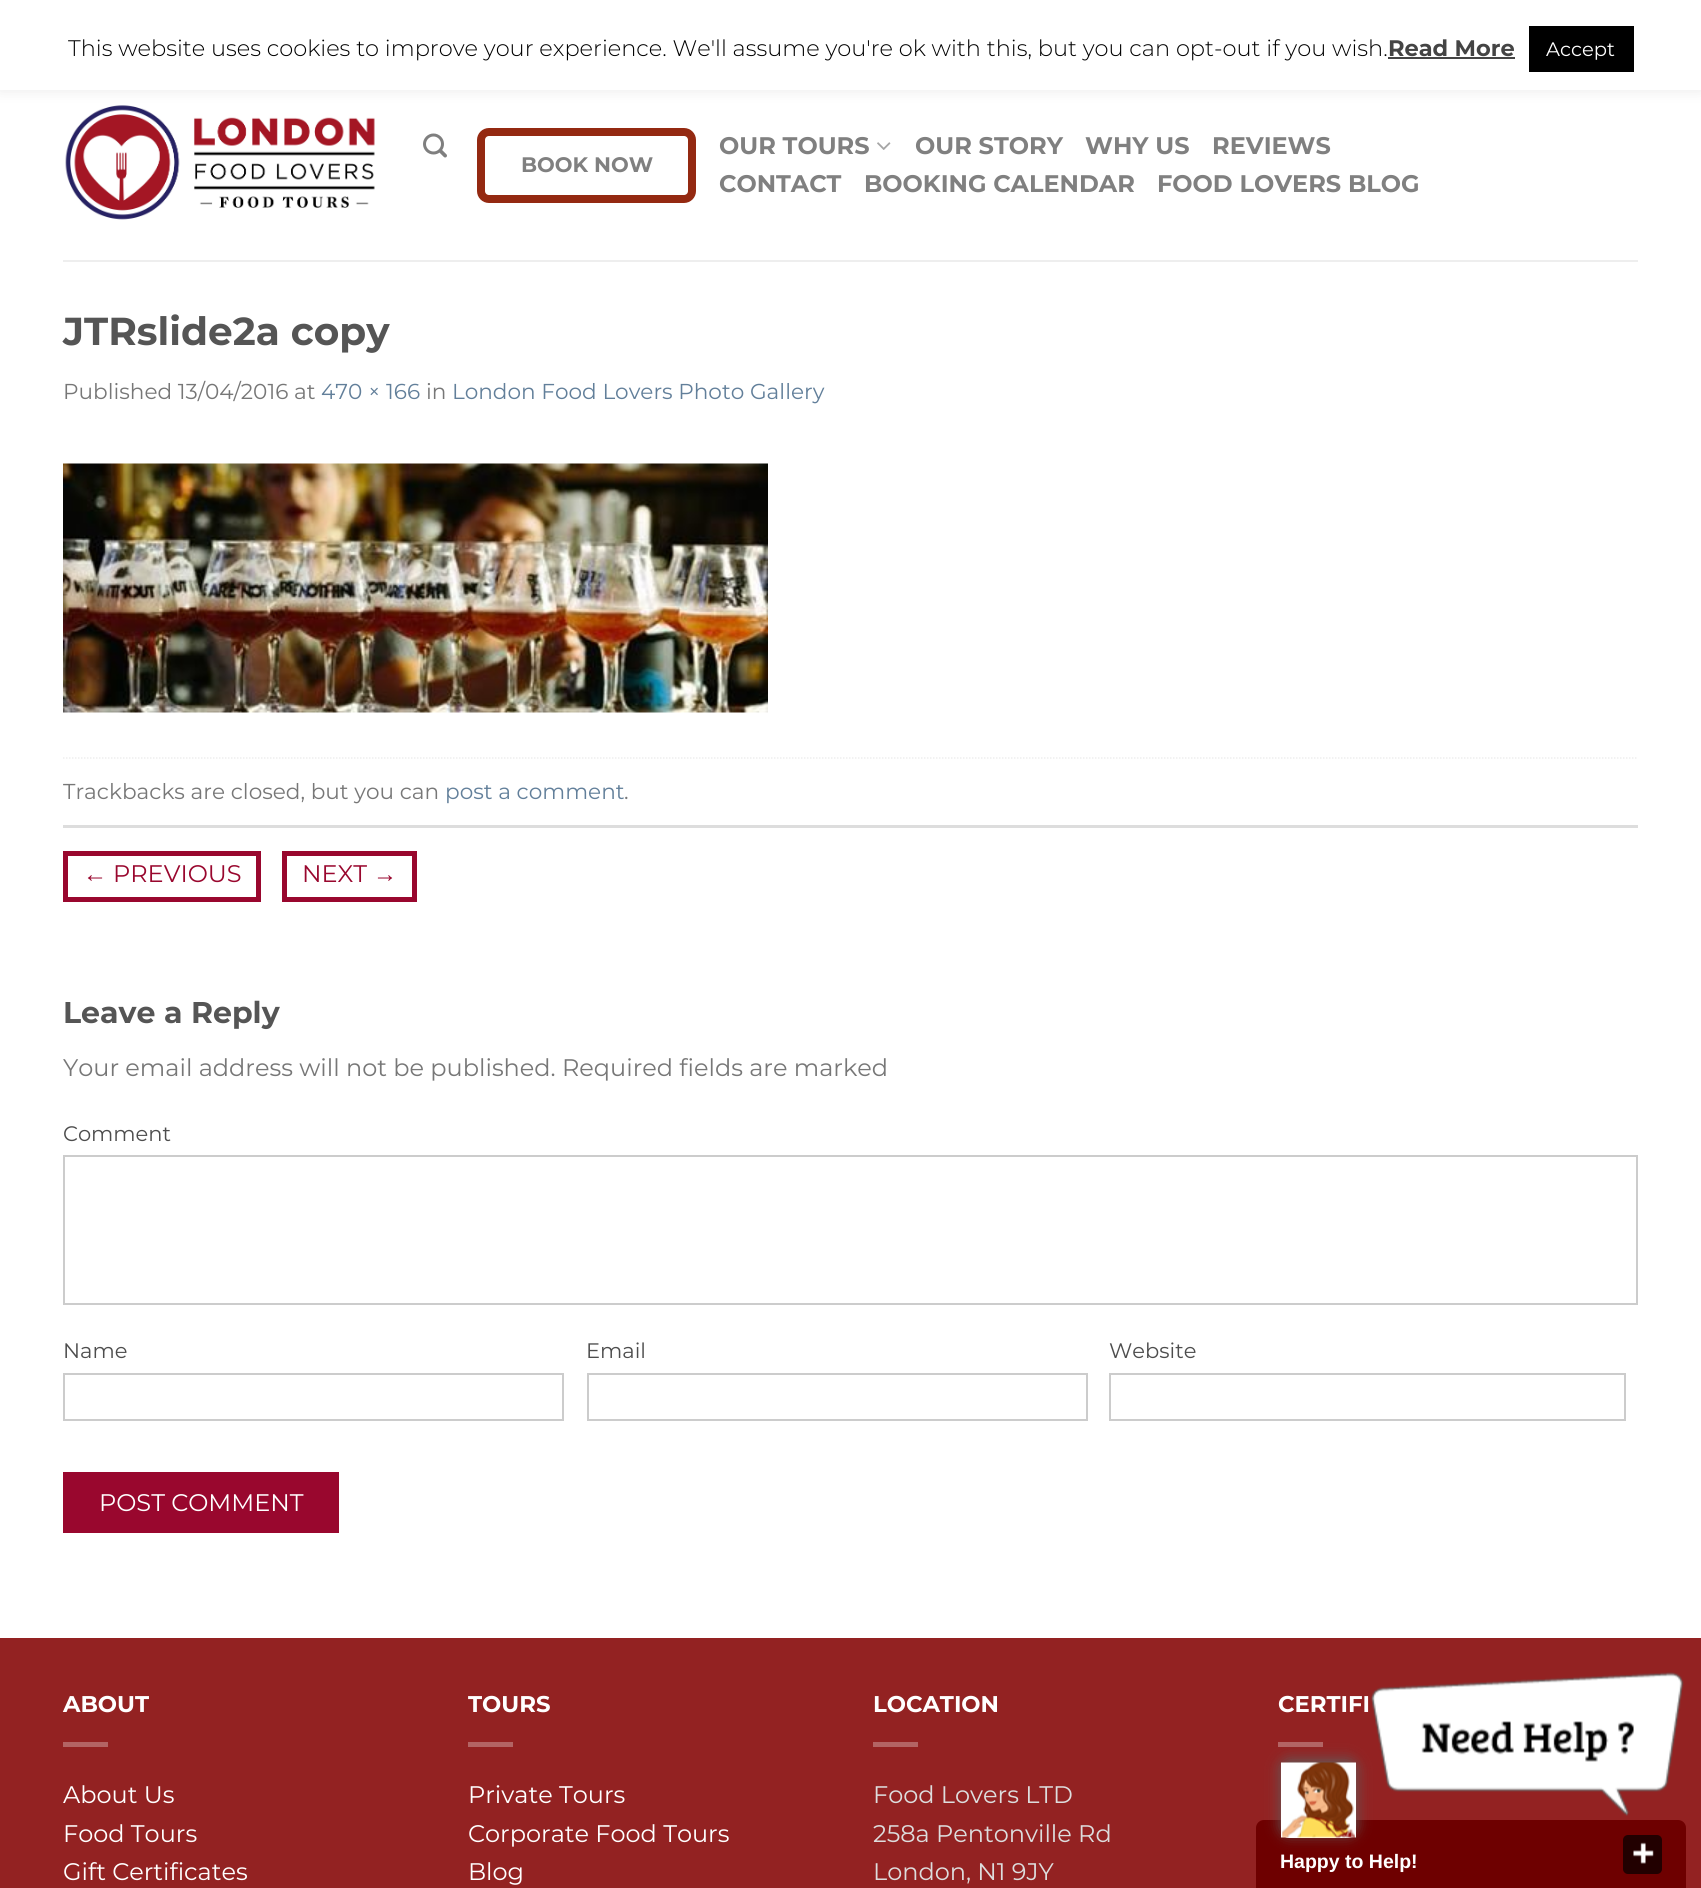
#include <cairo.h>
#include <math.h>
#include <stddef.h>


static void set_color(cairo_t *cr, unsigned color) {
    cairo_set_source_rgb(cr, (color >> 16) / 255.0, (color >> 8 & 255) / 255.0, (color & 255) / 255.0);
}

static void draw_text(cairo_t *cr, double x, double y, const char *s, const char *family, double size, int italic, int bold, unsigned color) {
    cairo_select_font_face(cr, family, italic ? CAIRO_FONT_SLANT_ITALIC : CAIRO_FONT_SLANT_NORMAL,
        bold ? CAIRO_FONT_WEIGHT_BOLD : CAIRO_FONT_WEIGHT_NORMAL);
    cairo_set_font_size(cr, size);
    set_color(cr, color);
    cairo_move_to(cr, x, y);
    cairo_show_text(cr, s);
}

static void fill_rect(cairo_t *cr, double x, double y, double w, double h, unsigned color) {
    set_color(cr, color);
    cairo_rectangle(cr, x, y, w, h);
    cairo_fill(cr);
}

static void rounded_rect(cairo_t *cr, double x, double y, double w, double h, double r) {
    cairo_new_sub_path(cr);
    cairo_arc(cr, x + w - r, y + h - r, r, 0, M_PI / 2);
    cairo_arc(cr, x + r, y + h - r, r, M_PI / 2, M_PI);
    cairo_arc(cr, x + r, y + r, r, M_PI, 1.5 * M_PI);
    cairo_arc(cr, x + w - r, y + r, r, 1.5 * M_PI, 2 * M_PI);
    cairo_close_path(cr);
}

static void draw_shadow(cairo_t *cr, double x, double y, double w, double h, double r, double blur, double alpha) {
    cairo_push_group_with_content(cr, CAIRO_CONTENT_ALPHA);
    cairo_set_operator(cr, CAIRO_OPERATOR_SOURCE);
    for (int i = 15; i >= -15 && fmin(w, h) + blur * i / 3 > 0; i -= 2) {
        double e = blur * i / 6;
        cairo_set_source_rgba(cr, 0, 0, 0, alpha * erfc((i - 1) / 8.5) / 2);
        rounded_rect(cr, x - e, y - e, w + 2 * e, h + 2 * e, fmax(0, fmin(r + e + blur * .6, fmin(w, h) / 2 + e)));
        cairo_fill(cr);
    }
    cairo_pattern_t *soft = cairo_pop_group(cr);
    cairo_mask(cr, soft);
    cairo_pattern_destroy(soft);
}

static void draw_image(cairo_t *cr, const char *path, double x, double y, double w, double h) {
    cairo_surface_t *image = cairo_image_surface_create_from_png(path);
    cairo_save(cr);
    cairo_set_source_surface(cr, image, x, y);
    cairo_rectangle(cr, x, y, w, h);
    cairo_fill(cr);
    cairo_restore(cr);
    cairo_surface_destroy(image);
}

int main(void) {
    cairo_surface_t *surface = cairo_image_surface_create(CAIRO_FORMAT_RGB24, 1701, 1888);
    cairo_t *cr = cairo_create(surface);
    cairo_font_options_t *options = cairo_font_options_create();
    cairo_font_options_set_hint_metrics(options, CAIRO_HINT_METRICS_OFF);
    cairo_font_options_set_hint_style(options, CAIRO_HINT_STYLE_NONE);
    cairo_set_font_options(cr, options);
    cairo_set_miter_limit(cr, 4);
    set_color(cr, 0xFFFFFF);
    cairo_paint(cr);
    draw_image(cr, "assets/img1.png", 65, 105, 310, 115);
    set_color(cr, 0xACABAB);
    draw_shadow(cr, 0, -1, 1701, 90, 0, 7.5, 0.3);
    fill_rect(cr, 0, 0, 1701, 90, 0xFFFFFF);
    draw_text(cr, 68, 56, "This website uses cookies to improve your experience. We'll assume you're ok with this, but you can opt-out if you wish.", "Montserrat Light", 22.5, 0, 0, 0x000000);
    draw_text(cr, 1388, 56, "Read More", "Montserrat", 22.5, 0, 1, 0x444444);
    fill_rect(cr, 1388, 57, 127, 2, 0x444444);
    fill_rect(cr, 1529, 26, 105, 46, 0x000000);
    draw_text(cr, 1546, 56, "Accept", "Montserrat", 19.5, 0, 0, 0xFFFFFF);
    draw_image(cr, "assets/img2.png", 423, 133, 24, 25);
    draw_text(cr, 719, 154, "OUR TOURS", "Montserrat", 24, 0, 1, 0x808080);
    draw_image(cr, "assets/img3.png", 877, 142, 14, 8);
    draw_text(cr, 915, 154, "OUR STORY", "Montserrat", 24, 0, 1, 0x808080);
    draw_text(cr, 1085, 154, "WHY US", "Montserrat", 24, 0, 1, 0x808080);
    draw_text(cr, 1212, 154, "REVIEWS", "Montserrat", 24, 0, 1, 0x808080);
    rounded_rect(cr, 481, 132, 211, 67, 8);
    set_color(cr, 0x942911);
    cairo_set_line_width(cr, 8);
    cairo_stroke(cr);
    draw_text(cr, 521, 172, "BOOK NOW", "Montserrat", 21, 0, 1, 0x808080);
    draw_text(cr, 719, 192, "CONTACT", "Montserrat", 24, 0, 1, 0x808080);
    draw_text(cr, 864, 192, "BOOKING CALENDAR", "Montserrat", 24, 0, 1, 0x808080);
    draw_text(cr, 1157, 192, "FOOD LOVERS BLOG", "Montserrat", 24, 0, 1, 0x808080);
    fill_rect(cr, 63, 260, 1575, 2, 0xEEEEEE);
    draw_text(cr, 63, 345, "JTRslide2a copy", "Montserrat", 39, 0, 1, 0x555555);
    draw_text(cr, 63, 399, "Published 13/04/2016 at", "Montserrat", 21.6, 0, 0, 0x777777);
    draw_text(cr, 321, 399, "470 × 166", "Montserrat", 21.6, 0, 0, 0x627F9A);
    draw_text(cr, 426, 399, "in", "Montserrat", 21.6, 0, 0, 0x777777);
    draw_text(cr, 452, 399, "London Food Lovers Photo Gallery", "Montserrat", 21.6, 0, 0, 0x627F9A);
    draw_image(cr, "assets/img4.png", 63, 463, 705, 250);
    cairo_new_path(cr);
    cairo_move_to(cr, 63, 758);
    cairo_line_to(cr, 1638, 758);
    set_color(cr, 0xEEEEEE);
    cairo_set_line_width(cr, 1.5);
    cairo_set_dash(cr, (double[]){1.5, 1.5}, 2, 0);
    cairo_stroke(cr);
    fill_rect(cr, 63, 825, 1575, 3, 0xDDDDDD);
    draw_text(cr, 63, 799, "Trackbacks are closed, but you can", "Montserrat", 21.6, 0, 0, 0x777777);
    draw_text(cr, 445, 799, "post a comment", "Montserrat", 21.6, 0, 0, 0x627F9A);
    draw_text(cr, 624, 799, ".", "Montserrat", 21.6, 0, 0, 0x777777);
    cairo_rectangle(cr, 65.5, 853.5, 193, 46);
    set_color(cr, 0x99072E);
    cairo_set_line_width(cr, 5);
    cairo_set_dash(cr, NULL, 0, 0);
    cairo_stroke(cr);
    draw_text(cr, 83, 882, "←", "Liberation Sans", 24, 0, 0, 0x99072E);
    draw_text(cr, 113, 882, "PREVIOUS", "Montserrat", 24, 0, 0, 0x99072E);
    cairo_rectangle(cr, 284.5, 853.5, 130, 46);
    cairo_stroke(cr);
    draw_text(cr, 302, 882, "NEXT", "Montserrat", 24, 0, 0, 0x99072E);
    draw_text(cr, 373, 882, "→", "Liberation Sans", 24, 0, 0, 0x99072E);
    draw_text(cr, 63, 1023, "Leave a Reply", "Montserrat", 30, 0, 1, 0x555555);
    draw_text(cr, 63, 1076, "Your email address will not be published. Required fields are marked", "Montserrat", 24, 0, 0, 0x777777);
    draw_text(cr, 63, 1141, "Comment", "Montserrat", 21, 0, 0, 0x4D4D4D);
    cairo_rectangle(cr, 64, 1156, 1573, 148);
    set_color(cr, 0xCCCCCC);
    cairo_set_line_width(cr, 2);
    cairo_stroke(cr);
    draw_text(cr, 63, 1358, "Name", "Montserrat", 21, 0, 0, 0x4D4D4D);
    cairo_rectangle(cr, 64, 1374, 499, 46);
    set_color(cr, 0xCCCCCC);
    cairo_stroke(cr);
    draw_text(cr, 586, 1358, "Email", "Montserrat", 21, 0, 0, 0x4D4D4D);
    cairo_rectangle(cr, 588, 1374, 499, 46);
    set_color(cr, 0xCCCCCC);
    cairo_stroke(cr);
    draw_text(cr, 1109, 1358, "Website", "Montserrat", 21, 0, 0, 0x4D4D4D);
    cairo_rectangle(cr, 1110, 1374, 515, 46);
    set_color(cr, 0xCCCCCC);
    cairo_stroke(cr);
    fill_rect(cr, 63, 1472, 276, 61, 0x99072E);
    draw_text(cr, 99, 1511, "POST COMMENT", "Montserrat", 24, 0, 0, 0xFFFFFF);
    fill_rect(cr, 0, 1638, 1701, 250, 0x932222);
    draw_text(cr, 63, 1712, "ABOUT", "Montserrat", 22.75, 0, 1, 0xFFFFFF);
    fill_rect(cr, 63, 1742, 45, 5, 0xB36464);
    draw_text(cr, 63, 1803, "About Us", "Montserrat", 24, 0, 0, 0xFFFFFF);
    draw_text(cr, 63, 1842, "Food Tours", "Montserrat", 24, 0, 0, 0xFFFFFF);
    draw_text(cr, 63, 1880, "Gift Certificates", "Montserrat", 24, 0, 0, 0xFFFFFF);
    draw_text(cr, 468, 1712, "TOURS", "Montserrat", 22.75, 0, 1, 0xFFFFFF);
    fill_rect(cr, 468, 1742, 45, 5, 0xB36464);
    draw_text(cr, 468, 1803, "Private Tours", "Montserrat", 24, 0, 0, 0xFFFFFF);
    draw_text(cr, 468, 1842, "Corporate Food Tours", "Montserrat", 24, 0, 0, 0xFFFFFF);
    draw_text(cr, 468, 1880, "Blog", "Montserrat", 24, 0, 0, 0xFFFFFF);
    draw_text(cr, 873, 1712, "LOCATION", "Montserrat", 22.75, 0, 1, 0xFFFFFF);
    fill_rect(cr, 873, 1742, 45, 5, 0xB36464);
    draw_text(cr, 873, 1803, "Food Lovers LTD", "Montserrat", 24, 0, 0, 0xDDDDDD);
    draw_text(cr, 873, 1842, "258a Pentonville Rd", "Montserrat", 24, 0, 0, 0xDDDDDD);
    draw_text(cr, 873, 1880, "London, N1 9JY", "Montserrat", 24, 0, 0, 0xDDDDDD);
    draw_text(cr, 1278, 1712, "CERTIFI", "Montserrat", 22.75, 0, 1, 0xFFFFFF);
    fill_rect(cr, 1278, 1742, 45, 5, 0xB36464);
    draw_image(cr, "assets/img5.png", 1371, 1672, 313, 144);
    set_color(cr, 0x6E0000);
    cairo_new_path(cr);
    cairo_move_to(cr, 1264, 1820);
    cairo_line_to(cr, 1678, 1820);
    cairo_curve_to(cr, 1682.5, 1820, 1686, 1823.5, 1686, 1828);
    cairo_line_to(cr, 1686, 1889);
    cairo_line_to(cr, 1256, 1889);
    cairo_line_to(cr, 1256, 1828);
    cairo_curve_to(cr, 1256, 1823.5, 1259.5, 1820, 1264, 1820);
    cairo_close_path(cr);
    cairo_fill(cr);
    set_color(cr, 0x5F5F5E);
    draw_shadow(cr, 1281, 1760, 75, 75, 8, 7, 1);
    set_color(cr, 0xFFFFFF);
    rounded_rect(cr, 1281, 1763, 75, 75, 8);
    cairo_fill(cr);
    draw_image(cr, "assets/img6.png", 1281, 1762, 75, 76);
    set_color(cr, 0x220000);
    rounded_rect(cr, 1623, 1835, 39, 39, 5);
    cairo_fill(cr);
    draw_image(cr, "assets/img7.png", 1633, 1842, 21, 22);
    draw_text(cr, 1280, 1868, "Happy to Help!", "Liberation Sans", 19.5, 0, 1, 0xFFFFFF);
    cairo_surface_write_to_png(surface, "output.png");
    cairo_font_options_destroy(options);
    cairo_destroy(cr);
    cairo_surface_destroy(surface);
    return 0;
}
